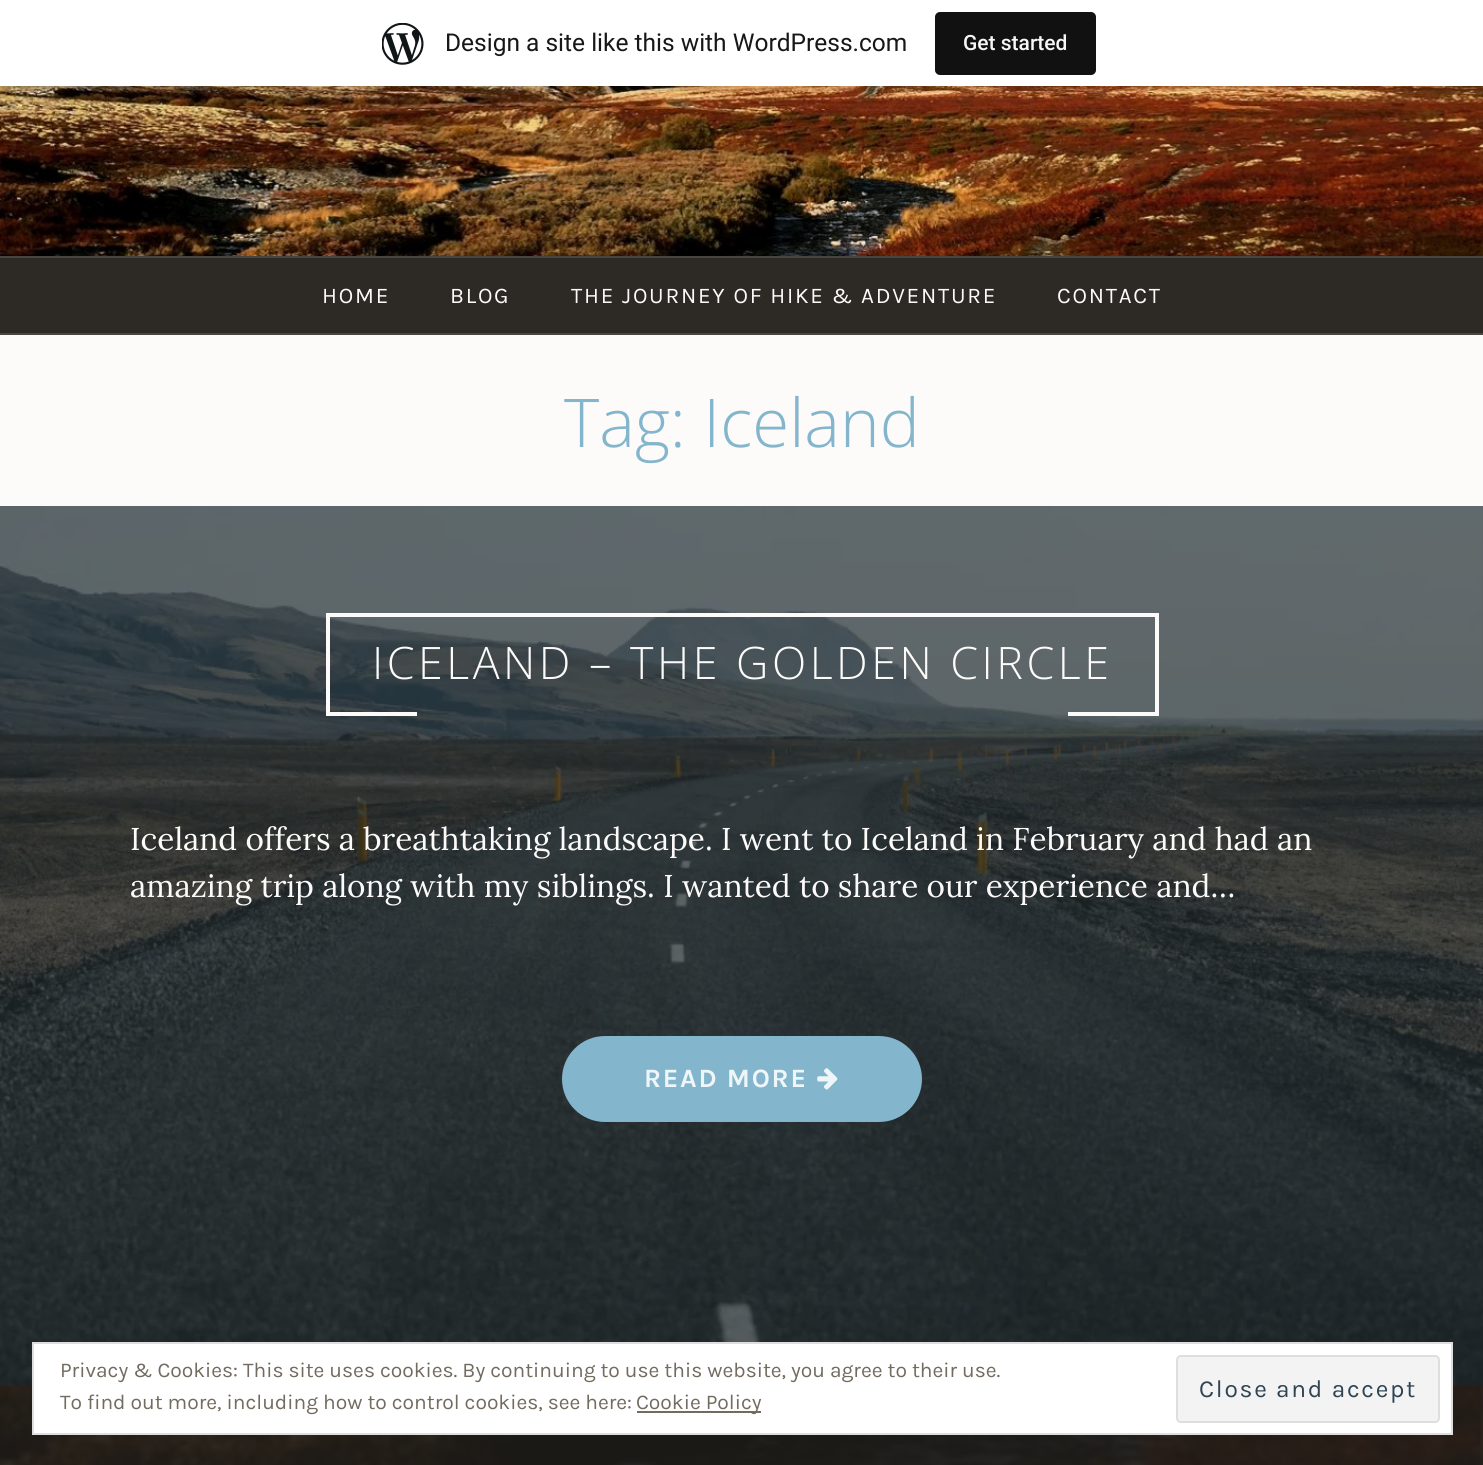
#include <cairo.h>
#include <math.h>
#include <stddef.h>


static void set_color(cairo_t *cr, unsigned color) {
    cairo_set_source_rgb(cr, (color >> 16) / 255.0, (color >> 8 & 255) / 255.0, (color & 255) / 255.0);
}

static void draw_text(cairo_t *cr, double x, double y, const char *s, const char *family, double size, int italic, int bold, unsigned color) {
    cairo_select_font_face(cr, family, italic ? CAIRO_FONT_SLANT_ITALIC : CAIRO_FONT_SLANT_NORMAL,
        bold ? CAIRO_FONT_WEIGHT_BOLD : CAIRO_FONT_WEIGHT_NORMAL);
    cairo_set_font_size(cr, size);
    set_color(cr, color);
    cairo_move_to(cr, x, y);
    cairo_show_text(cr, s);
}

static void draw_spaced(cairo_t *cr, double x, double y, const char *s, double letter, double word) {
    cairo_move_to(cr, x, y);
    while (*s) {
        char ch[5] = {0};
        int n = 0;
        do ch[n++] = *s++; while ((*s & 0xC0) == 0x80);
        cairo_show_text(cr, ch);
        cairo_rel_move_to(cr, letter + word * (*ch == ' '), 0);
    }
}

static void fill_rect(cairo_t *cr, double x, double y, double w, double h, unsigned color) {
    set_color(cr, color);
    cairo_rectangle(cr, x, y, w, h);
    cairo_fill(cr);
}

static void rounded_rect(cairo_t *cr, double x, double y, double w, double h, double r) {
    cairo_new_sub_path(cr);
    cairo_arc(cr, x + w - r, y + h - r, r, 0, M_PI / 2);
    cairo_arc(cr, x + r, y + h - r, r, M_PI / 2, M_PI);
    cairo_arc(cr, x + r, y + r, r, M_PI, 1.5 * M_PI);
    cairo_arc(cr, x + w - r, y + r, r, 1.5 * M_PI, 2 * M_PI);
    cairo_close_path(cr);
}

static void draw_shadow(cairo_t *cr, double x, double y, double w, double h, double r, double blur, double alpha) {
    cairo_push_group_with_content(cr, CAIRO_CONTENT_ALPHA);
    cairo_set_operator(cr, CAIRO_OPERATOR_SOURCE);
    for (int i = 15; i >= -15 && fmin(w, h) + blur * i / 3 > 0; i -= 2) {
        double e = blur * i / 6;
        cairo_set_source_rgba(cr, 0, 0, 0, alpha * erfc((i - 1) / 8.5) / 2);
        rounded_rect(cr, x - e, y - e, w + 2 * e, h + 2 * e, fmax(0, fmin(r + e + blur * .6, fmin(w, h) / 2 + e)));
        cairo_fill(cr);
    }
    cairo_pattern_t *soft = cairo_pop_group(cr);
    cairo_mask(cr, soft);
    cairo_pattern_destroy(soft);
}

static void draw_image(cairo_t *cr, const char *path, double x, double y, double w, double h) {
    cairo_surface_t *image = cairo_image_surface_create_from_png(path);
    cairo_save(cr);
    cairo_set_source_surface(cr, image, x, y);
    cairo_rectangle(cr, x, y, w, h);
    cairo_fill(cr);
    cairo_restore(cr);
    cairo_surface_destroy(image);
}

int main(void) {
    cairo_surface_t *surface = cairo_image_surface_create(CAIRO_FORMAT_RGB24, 1483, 1465);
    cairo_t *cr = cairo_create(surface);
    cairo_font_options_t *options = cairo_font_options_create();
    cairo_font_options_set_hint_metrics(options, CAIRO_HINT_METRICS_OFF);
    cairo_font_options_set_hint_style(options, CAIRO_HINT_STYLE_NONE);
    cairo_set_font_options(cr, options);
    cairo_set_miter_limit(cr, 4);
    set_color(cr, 0xFCFBFA);
    cairo_paint(cr);
    draw_image(cr, "assets/img2.png", 0, 86, 1483, 170);
    set_color(cr, 0x000000);
    draw_shadow(cr, 0, 2, 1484, 86, 0, 2, 0.05);
    cairo_set_source_rgba(cr, 0, 0, 0, 0.08);
    cairo_new_path(cr);
    cairo_move_to(cr, 2, 86);
    cairo_line_to(cr, 2, 91);
    cairo_line_to(cr, 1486, 91);
    cairo_line_to(cr, 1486, 5);
    cairo_line_to(cr, 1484, 5);
    cairo_line_to(cr, 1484, 86);
    cairo_close_path(cr);
    cairo_fill(cr);
    fill_rect(cr, 0, 0, 1483, 86, 0xFFFFFF);
    draw_image(cr, "assets/img1.png", 382, 23, 42, 42);
    draw_text(cr, 445, 51, "Design a site like this with WordPress.com", "Roboto", 24.5, 0, 0, 0x171717);
    set_color(cr, 0x111111);
    rounded_rect(cr, 935, 12, 161, 63, 5);
    cairo_fill(cr);
    draw_text(cr, 963, 50, "Get started", "Roboto Medium", 21, 0, 0, 0xF6F7F7);
    fill_rect(cr, 0, 258, 1483, 75, 0x2D2A26);
    fill_rect(cr, 0, 256, 1483, 2, 0x49443D);
    fill_rect(cr, 0, 333, 1483, 2, 0x49443D);
    cairo_select_font_face(cr, "Karla", CAIRO_FONT_SLANT_NORMAL, CAIRO_FONT_WEIGHT_NORMAL);
    cairo_set_font_size(cr, 22.4);
    set_color(cr, 0xFCFBF9);
    draw_spaced(cr, 322, 303, "HOME", 1.75, 0);
    draw_spaced(cr, 450, 303, "BLOG", 1.75, 0);
    draw_spaced(cr, 571, 303, "THE JOURNEY OF HIKE & ADVENTURE", 1.75, 0);
    draw_spaced(cr, 1057, 303, "CONTACT", 1.75, 0);
    draw_text(cr, 564, 447, "Tag: Iceland", "Open Sans Light", 67.25, 0, 0, 0x83B6CC);
    fill_rect(cr, 0, 506, 1483, 880, 0x1F2B30);
    draw_image(cr, "assets/img3.png", 0, 506, 1483, 881);
    fill_rect(cr, 326, 613, 833, 4, 0xFCFBF9);
    fill_rect(cr, 1155, 613, 4, 103, 0xFCFBF9);
    fill_rect(cr, 326, 613, 4, 103, 0xFCFBF9);
    cairo_set_font_size(cr, 44.75);
    draw_spaced(cr, 372, 679, "ICELAND – THE GOLDEN CIRCLE", 3.5, 0);
    fill_rect(cr, 329, 712, 88, 4, 0xFCFBF9);
    fill_rect(cr, 1068, 712, 87, 4, 0xFCFBF9);
    draw_text(cr, 130, 850, "Iceland offers a breathtaking landscape. I went to Iceland in February and had an", "Lora", 31.5, 0, 0, 0xFCFBF9);
    draw_text(cr, 130, 897, "amazing trip along with my siblings. I wanted to share our experience and…", "Lora", 31.5, 0, 0, 0xFCFBF9);
    set_color(cr, 0x83B6CC);
    rounded_rect(cr, 562, 1036, 360, 86, 43);
    cairo_fill(cr);
    cairo_select_font_face(cr, "Karla", CAIRO_FONT_SLANT_NORMAL, CAIRO_FONT_WEIGHT_BOLD);
    cairo_set_font_size(cr, 26.5);
    set_color(cr, 0xEFF6F9);
    draw_spaced(cr, 644, 1087, "READ MORE", 1.75, 0);
    draw_image(cr, "assets/img4.png", 817, 1068, 21, 22);
    draw_image(cr, "assets/img5.png", 0, 1386, 1483, 79);
    cairo_set_source_rgba(cr, 0.122, 0.114, 0.102, 0.88);
    cairo_rectangle(cr, 0, 1386, 1483, 79);
    cairo_fill(cr);
    set_color(cr, 0xFFFFFF);
    cairo_rectangle(cr, 33, 1343, 1419, 91);
    cairo_fill_preserve(cr);
    set_color(cr, 0xDEDEDE);
    cairo_stroke(cr);
    draw_text(cr, 60, 1377, "Privacy & Cookies: This site uses cookies. By continuing to use this website, you agree to their use.", "Karla", 21, 0, 0, 0x726B60);
    draw_text(cr, 60, 1409, "To find out more, including how to control cookies, see here:", "Karla", 21, 0, 0, 0x726B60);
    fill_rect(cr, 637, 1411, 124, 2, 0x726B60);
    draw_text(cr, 636, 1409, "Cookie Policy", "Karla", 21, 0, 0, 0x726B60);
    set_color(cr, 0xF3F3F3);
    rounded_rect(cr, 1177, 1356, 262, 66, 4);
    cairo_fill_preserve(cr);
    set_color(cr, 0xDEDEDE);
    cairo_stroke(cr);
    cairo_set_font_size(cr, 24.5);
    set_color(cr, 0x2E4453);
    draw_spaced(cr, 1199, 1397, "Close and accept", 1.75, 0);
    cairo_surface_write_to_png(surface, "output.png");
    cairo_font_options_destroy(options);
    cairo_destroy(cr);
    cairo_surface_destroy(surface);
    return 0;
}
